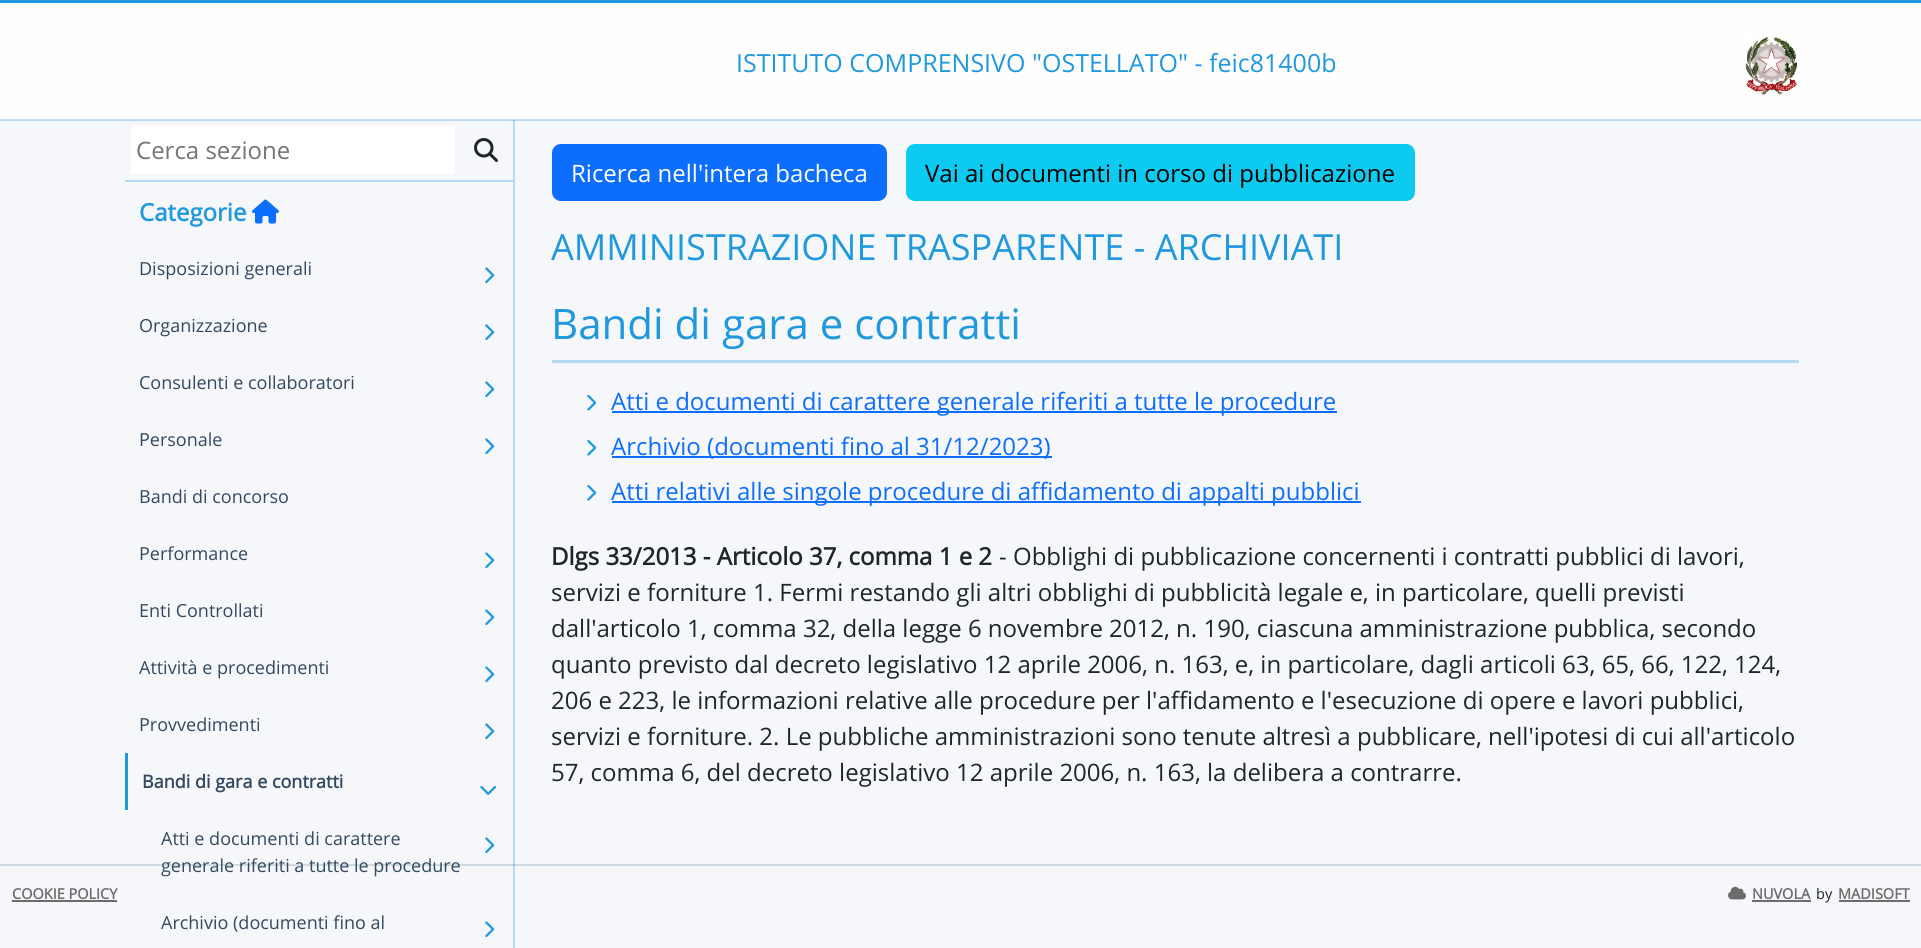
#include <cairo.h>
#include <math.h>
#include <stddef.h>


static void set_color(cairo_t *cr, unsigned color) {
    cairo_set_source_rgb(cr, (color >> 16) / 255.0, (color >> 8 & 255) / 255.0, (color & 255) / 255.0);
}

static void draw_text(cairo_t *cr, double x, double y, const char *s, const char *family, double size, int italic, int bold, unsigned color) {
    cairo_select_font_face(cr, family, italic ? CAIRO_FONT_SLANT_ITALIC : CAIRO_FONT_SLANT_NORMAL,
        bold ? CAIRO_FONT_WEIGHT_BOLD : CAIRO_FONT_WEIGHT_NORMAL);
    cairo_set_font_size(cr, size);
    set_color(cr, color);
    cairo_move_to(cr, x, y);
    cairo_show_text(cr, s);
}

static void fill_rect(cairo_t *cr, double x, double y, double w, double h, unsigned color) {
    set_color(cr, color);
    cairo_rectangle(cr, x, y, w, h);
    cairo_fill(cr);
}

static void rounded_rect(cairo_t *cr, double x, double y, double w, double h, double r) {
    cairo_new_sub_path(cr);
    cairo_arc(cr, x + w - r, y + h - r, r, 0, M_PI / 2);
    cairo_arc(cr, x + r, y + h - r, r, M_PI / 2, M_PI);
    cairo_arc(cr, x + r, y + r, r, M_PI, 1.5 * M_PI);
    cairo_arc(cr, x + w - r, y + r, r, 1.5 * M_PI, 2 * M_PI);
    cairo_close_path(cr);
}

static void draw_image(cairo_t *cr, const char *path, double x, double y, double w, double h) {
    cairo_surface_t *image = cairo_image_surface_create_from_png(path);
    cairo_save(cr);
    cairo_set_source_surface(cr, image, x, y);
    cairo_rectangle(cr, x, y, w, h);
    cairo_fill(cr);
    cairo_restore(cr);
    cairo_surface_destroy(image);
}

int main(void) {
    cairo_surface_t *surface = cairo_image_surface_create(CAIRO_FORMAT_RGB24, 1921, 948);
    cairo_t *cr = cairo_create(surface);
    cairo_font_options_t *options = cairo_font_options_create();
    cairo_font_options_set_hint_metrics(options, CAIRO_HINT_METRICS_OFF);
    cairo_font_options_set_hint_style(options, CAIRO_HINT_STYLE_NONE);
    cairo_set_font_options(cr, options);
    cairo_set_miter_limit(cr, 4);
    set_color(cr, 0xF5F7FA);
    cairo_paint(cr);
    fill_rect(cr, 0, 120, 1921, 1, 0xB5DAF2);
    fill_rect(cr, 513, 120, 2, 828, 0xB5DAF2);
    fill_rect(cr, 513, 120, 2, 1, 0x88C6EC);
    fill_rect(cr, 0, 3, 1921, 116, 0xFEFEFE);
    fill_rect(cr, 0, 119, 1921, 1, 0xBBDFF4);
    fill_rect(cr, 0, 0, 1921, 3, 0x1F98DE);
    draw_text(cr, 736, 72, "ISTITUTO COMPRENSIVO \"OSTELLATO\" - feic81400b", "Open Sans", 25, 0, 0, 0x1F98DE);
    draw_image(cr, "assets/img1.png", 1744, 36, 54, 59);
    fill_rect(cr, 131, 126, 324, 48, 0xFFFFFF);
    draw_text(cr, 136, 159, "Cerca sezione", "Open Sans", 24, 0, 0, 0x757575);
    draw_image(cr, "assets/img2.png", 474, 138, 24, 24);
    fill_rect(cr, 125, 180, 388, 2, 0xB5DBF2);
    draw_text(cr, 139, 221, "Categorie", "Open Sans", 24, 0, 1, 0x1F98DE);
    draw_image(cr, "assets/img3.png", 252, 199, 27, 25);
    draw_text(cr, 139, 275, "Disposizioni generali", "Open Sans", 18, 0, 0, 0x34495E);
    draw_image(cr, "assets/img4.png", 485, 267, 10, 17);
    draw_text(cr, 139, 332, "Organizzazione", "Open Sans", 18, 0, 0, 0x34495E);
    draw_image(cr, "assets/img4.png", 485, 324, 10, 17);
    draw_text(cr, 139, 389, "Consulenti e collaboratori", "Open Sans", 18, 0, 0, 0x34495E);
    draw_image(cr, "assets/img4.png", 485, 381, 10, 17);
    draw_text(cr, 139, 446, "Personale", "Open Sans", 18, 0, 0, 0x34495E);
    draw_image(cr, "assets/img4.png", 485, 438, 10, 17);
    draw_text(cr, 139, 503, "Bandi di concorso", "Open Sans", 18, 0, 0, 0x34495E);
    draw_text(cr, 139, 560, "Performance", "Open Sans", 18, 0, 0, 0x34495E);
    draw_image(cr, "assets/img4.png", 485, 552, 10, 17);
    draw_text(cr, 139, 617, "Enti Controllati", "Open Sans", 18, 0, 0, 0x34495E);
    draw_image(cr, "assets/img4.png", 485, 609, 10, 17);
    draw_text(cr, 139, 674, "Attività e procedimenti", "Open Sans", 18, 0, 0, 0x34495E);
    draw_image(cr, "assets/img4.png", 485, 666, 10, 17);
    draw_text(cr, 139, 731, "Provvedimenti", "Open Sans", 18, 0, 0, 0x34495E);
    draw_image(cr, "assets/img4.png", 485, 723, 10, 17);
    fill_rect(cr, 125, 753, 3, 57, 0x1F98DE);
    draw_text(cr, 142, 788, "Bandi di gara e contratti", "Open Sans", 18, 0, 1, 0x34495E);
    draw_image(cr, "assets/img5.png", 480, 786, 16, 9);
    draw_text(cr, 161, 845, "Atti e documenti di carattere", "Open Sans", 18, 0, 0, 0x34495E);
    fill_rect(cr, 0, 864, 1921, 2, 0xCFDBE2);
    draw_text(cr, 161, 872, "generale riferiti a tutte le procedure", "Open Sans", 18, 0, 0, 0x34495E);
    draw_image(cr, "assets/img4.png", 485, 837, 10, 17);
    draw_text(cr, 161, 929, "Archivio (documenti fino al", "Open Sans", 18, 0, 0, 0x34495E);
    draw_image(cr, "assets/img4.png", 485, 921, 10, 17);
    set_color(cr, 0x0D6EFD);
    rounded_rect(cr, 553, 145, 333, 55, 8);
    cairo_fill_preserve(cr);
    cairo_stroke(cr);
    draw_text(cr, 571, 182, "Ricerca nell'intera bacheca", "Open Sans", 24, 0, 0, 0xFFFFFF);
    set_color(cr, 0x0DCAF0);
    rounded_rect(cr, 907, 145, 507, 55, 8);
    cairo_fill_preserve(cr);
    cairo_stroke(cr);
    draw_text(cr, 925, 182, "Vai ai documenti in corso di pubblicazione", "Open Sans", 24, 0, 0, 0x000000);
    draw_text(cr, 551, 260, "AMMINISTRAZIONE TRASPARENTE - ARCHIVIATI", "Open Sans", 36, 0, 0, 0x1F98DE);
    fill_rect(cr, 552, 360, 1247, 3, 0xB5DBF2);
    draw_text(cr, 551, 339, "Bandi di gara e contratti", "Open Sans", 42, 0, 0, 0x1F98DE);
    draw_image(cr, "assets/img6.png", 587, 394, 10, 17);
    fill_rect(cr, 612, 411, 725, 2, 0x0D6EFD);
    draw_text(cr, 611, 410, "Atti e documenti di carattere generale riferiti a tutte le procedure", "Open Sans", 24, 0, 0, 0x0D6EFD);
    draw_image(cr, "assets/img6.png", 587, 439, 10, 17);
    fill_rect(cr, 612, 456, 440, 2, 0x0D6EFD);
    draw_text(cr, 611, 455, "Archivio (documenti fino al 31/12/2023)", "Open Sans", 24, 0, 0, 0x0D6EFD);
    draw_image(cr, "assets/img6.png", 587, 484, 10, 17);
    fill_rect(cr, 612, 501, 749, 2, 0x0D6EFD);
    draw_text(cr, 611, 500, "Atti relativi alle singole procedure di affidamento di appalti pubblici", "Open Sans", 24, 0, 0, 0x0D6EFD);
    draw_text(cr, 551, 565, "Dlgs 33/2013 - Articolo 37, comma 1 e 2", "Open Sans", 24, 0, 1, 0x212529);
    draw_text(cr, 999, 565, "- Obblighi di pubblicazione concernenti i contratti pubblici di lavori,", "Open Sans", 24, 0, 0, 0x212529);
    draw_text(cr, 551, 601, "servizi e forniture 1. Fermi restando gli altri obblighi di pubblicità legale e, in particolare, quelli previsti", "Open Sans", 24, 0, 0, 0x212529);
    draw_text(cr, 551, 637, "dall'articolo 1, comma 32, della legge 6 novembre 2012, n. 190, ciascuna amministrazione pubblica, secondo", "Open Sans", 24, 0, 0, 0x212529);
    draw_text(cr, 551, 673, "quanto previsto dal decreto legislativo 12 aprile 2006, n. 163, e, in particolare, dagli articoli 63, 65, 66, 122, 124,", "Open Sans", 24, 0, 0, 0x212529);
    draw_text(cr, 551, 709, "206 e 223, le informazioni relative alle procedure per l'affidamento e l'esecuzione di opere e lavori pubblici,", "Open Sans", 24, 0, 0, 0x212529);
    draw_text(cr, 551, 745, "servizi e forniture. 2. Le pubbliche amministrazioni sono tenute altresì a pubblicare, nell'ipotesi di cui all'articolo", "Open Sans", 24, 0, 0, 0x212529);
    draw_text(cr, 551, 781, "57, comma 6, del decreto legislativo 12 aprile 2006, n. 163, la delibera a contrarre.", "Open Sans", 24, 0, 0, 0x212529);
    fill_rect(cr, 513, 864, 2, 2, 0x9AC7E1);
    draw_text(cr, 12, 899, "COOKIE POLICY", "Open Sans", 14.5, 0, 1, 0x6C6C6C);
    fill_rect(cr, 12, 900, 105, 2, 0x6C6C6C);
    draw_image(cr, "assets/img7.png", 1728, 886, 18, 14);
    draw_text(cr, 1752, 899, "NUVOLA", "Open Sans", 14.5, 0, 1, 0x6C6C6C);
    fill_rect(cr, 1752, 900, 59, 2, 0x6C6C6C);
    draw_text(cr, 1816, 899, "by", "Open Sans", 14.5, 0, 0, 0x212529);
    draw_text(cr, 1838, 899, "MADISOFT", "Open Sans", 14.5, 0, 1, 0x6C6C6C);
    fill_rect(cr, 1839, 900, 71, 2, 0x6C6C6C);
    cairo_surface_write_to_png(surface, "output.png");
    cairo_font_options_destroy(options);
    cairo_destroy(cr);
    cairo_surface_destroy(surface);
    return 0;
}
